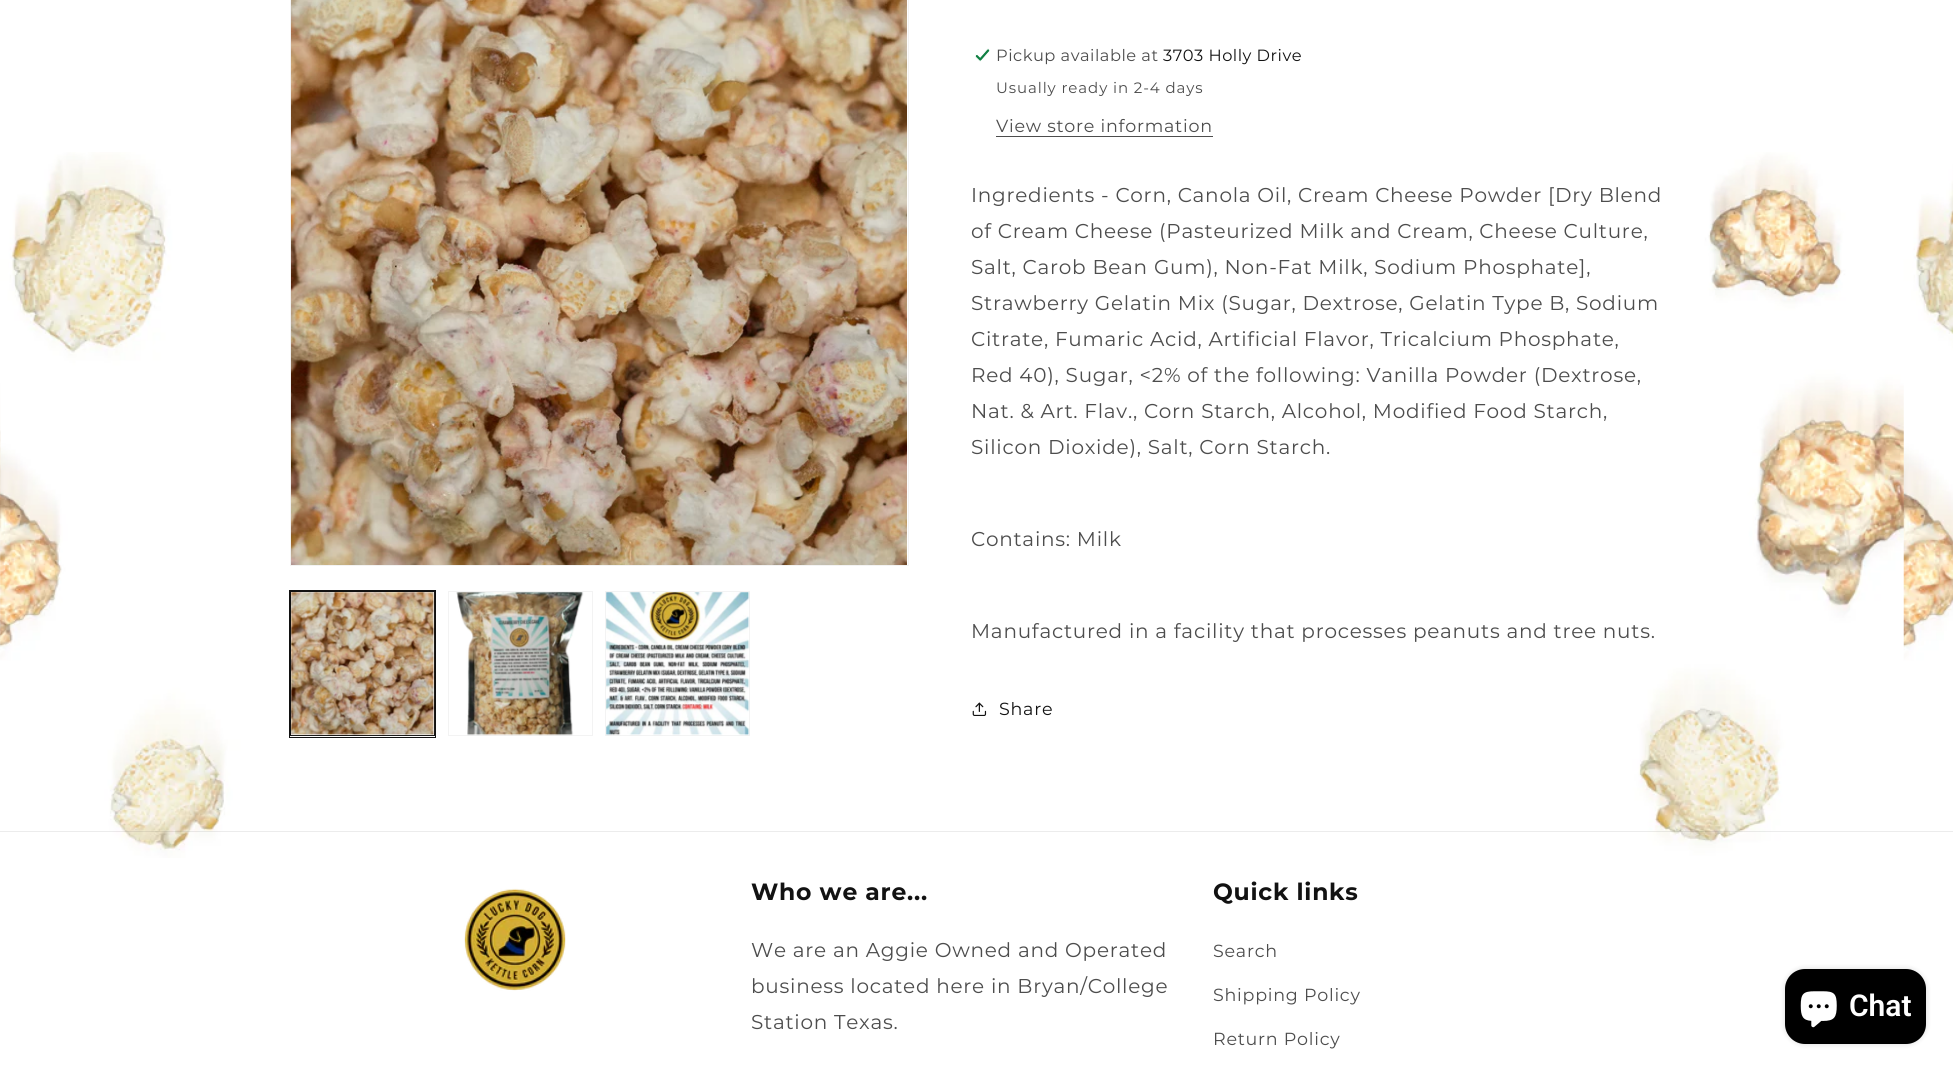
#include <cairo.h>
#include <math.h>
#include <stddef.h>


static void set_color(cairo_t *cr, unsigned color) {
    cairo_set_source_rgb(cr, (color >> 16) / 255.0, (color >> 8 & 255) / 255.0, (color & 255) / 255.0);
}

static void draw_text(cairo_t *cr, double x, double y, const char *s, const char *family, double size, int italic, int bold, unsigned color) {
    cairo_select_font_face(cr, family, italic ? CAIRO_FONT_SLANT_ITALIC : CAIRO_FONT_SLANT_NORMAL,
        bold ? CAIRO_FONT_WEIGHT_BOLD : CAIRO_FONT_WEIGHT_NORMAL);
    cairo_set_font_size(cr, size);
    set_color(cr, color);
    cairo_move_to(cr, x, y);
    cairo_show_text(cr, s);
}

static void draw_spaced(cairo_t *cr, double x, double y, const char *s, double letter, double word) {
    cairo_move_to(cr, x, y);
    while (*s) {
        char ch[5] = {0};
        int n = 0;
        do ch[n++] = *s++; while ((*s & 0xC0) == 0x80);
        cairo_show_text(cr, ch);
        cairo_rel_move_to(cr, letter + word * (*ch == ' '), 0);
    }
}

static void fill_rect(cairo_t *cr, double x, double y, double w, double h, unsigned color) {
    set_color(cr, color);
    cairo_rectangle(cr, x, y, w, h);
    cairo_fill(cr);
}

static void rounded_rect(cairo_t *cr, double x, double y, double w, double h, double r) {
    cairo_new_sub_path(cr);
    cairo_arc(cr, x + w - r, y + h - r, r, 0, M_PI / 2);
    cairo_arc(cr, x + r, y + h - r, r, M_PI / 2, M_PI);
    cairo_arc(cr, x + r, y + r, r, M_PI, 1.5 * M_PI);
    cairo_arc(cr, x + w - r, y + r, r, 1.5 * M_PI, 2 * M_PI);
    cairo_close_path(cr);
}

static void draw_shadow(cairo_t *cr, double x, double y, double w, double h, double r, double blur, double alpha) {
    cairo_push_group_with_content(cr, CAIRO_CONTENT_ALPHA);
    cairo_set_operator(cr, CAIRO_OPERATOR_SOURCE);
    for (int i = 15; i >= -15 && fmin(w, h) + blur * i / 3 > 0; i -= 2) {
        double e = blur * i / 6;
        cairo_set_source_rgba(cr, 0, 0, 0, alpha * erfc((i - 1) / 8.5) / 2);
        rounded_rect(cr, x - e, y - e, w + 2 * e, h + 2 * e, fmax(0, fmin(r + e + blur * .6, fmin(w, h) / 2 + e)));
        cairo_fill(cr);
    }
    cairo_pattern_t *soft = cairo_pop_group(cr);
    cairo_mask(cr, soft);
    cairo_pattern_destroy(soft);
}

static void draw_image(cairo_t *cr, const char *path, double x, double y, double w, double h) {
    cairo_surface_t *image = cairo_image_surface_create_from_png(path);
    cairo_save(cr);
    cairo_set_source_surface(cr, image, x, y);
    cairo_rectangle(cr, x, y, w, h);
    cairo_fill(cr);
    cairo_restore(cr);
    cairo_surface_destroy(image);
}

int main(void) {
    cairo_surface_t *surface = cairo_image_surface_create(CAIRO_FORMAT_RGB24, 1953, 1070);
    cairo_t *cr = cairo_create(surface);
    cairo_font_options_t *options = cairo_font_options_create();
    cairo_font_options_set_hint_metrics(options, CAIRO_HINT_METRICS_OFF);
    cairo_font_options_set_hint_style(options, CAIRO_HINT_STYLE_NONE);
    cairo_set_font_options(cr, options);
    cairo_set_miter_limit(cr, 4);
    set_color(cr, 0xFFFFFF);
    cairo_paint(cr);
    draw_image(cr, "assets/img1.png", 0, 152, 1953, 706);
    cairo_rectangle(cr, 290.5, -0.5, 618, 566);
    set_color(cr, 0xF3F3F3);
    cairo_set_line_width(cr, 1);
    cairo_stroke(cr);
    draw_image(cr, "assets/img2.png", 291, 0, 616, 565);
    cairo_rectangle(cr, 289.5, 590.5, 146, 147);
    set_color(cr, 0x121212);
    cairo_stroke(cr);
    cairo_rectangle(cr, 290.5, 591.5, 144, 144);
    cairo_stroke(cr);
    draw_image(cr, "assets/img3.png", 291, 592, 144, 144);
    cairo_rectangle(cr, 448.5, 591.5, 144, 144);
    set_color(cr, 0xF3F3F3);
    cairo_stroke(cr);
    draw_image(cr, "assets/img4.png", 456, 592, 128, 144);
    cairo_rectangle(cr, 605.5, 591.5, 144, 144);
    cairo_stroke(cr);
    draw_image(cr, "assets/img5.png", 606, 592, 144, 144);
    draw_image(cr, "assets/img6.png", 975, 48, 15, 14);
    cairo_select_font_face(cr, "Montserrat", CAIRO_FONT_SLANT_NORMAL, CAIRO_FONT_WEIGHT_NORMAL);
    cairo_set_font_size(cr, 16.25);
    set_color(cr, 0x4D4D4D);
    draw_spaced(cr, 996, 61, "Pickup available at", 0.5, 0);
    set_color(cr, 0x121212);
    draw_spaced(cr, 1163, 61, "3703 Holly Drive", 0.5, 0);
    cairo_set_font_size(cr, 15);
    set_color(cr, 0x4D4D4D);
    draw_spaced(cr, 996, 93, "Usually ready in 2-4 days", 0.9, 0);
    cairo_set_font_size(cr, 17.5);
    draw_spaced(cr, 996, 132, "View store information", 0.75, 0);
    fill_rect(cr, 996, 136, 217, 1, 0x4D4D4D);
    cairo_set_font_size(cr, 20);
    draw_spaced(cr, 971, 202, "Ingredients - Corn, Canola Oil, Cream Cheese Powder [Dry Blend", 0.75, 0);
    draw_spaced(cr, 971, 238, "of Cream Cheese (Pasteurized Milk and Cream, Cheese Culture,", 0.75, 0);
    draw_spaced(cr, 971, 274, "Salt, Carob Bean Gum), Non-Fat Milk, Sodium Phosphate],", 0.75, 0);
    draw_spaced(cr, 971, 310, "Strawberry Gelatin Mix (Sugar, Dextrose, Gelatin Type B, Sodium", 0.75, 0);
    draw_spaced(cr, 971, 346, "Citrate, Fumaric Acid, Artificial Flavor, Tricalcium Phosphate,", 0.75, 0);
    draw_spaced(cr, 971, 382, "Red 40), Sugar, <2% of the following: Vanilla Powder (Dextrose,", 0.75, 0);
    draw_spaced(cr, 971, 418, "Nat. & Art. Flav., Corn Starch, Alcohol, Modified Food Starch,", 0.75, 0);
    draw_spaced(cr, 971, 454, "Silicon Dioxide), Salt, Corn Starch.", 0.75, 0);
    draw_spaced(cr, 971, 546, "Contains: Milk", 0.75, 0);
    draw_spaced(cr, 971, 638, "Manufactured in a facility that processes peanuts and tree nuts.", 0.75, 0);
    draw_image(cr, "assets/img7.png", 972, 702, 15, 14);
    cairo_set_font_size(cr, 17.5);
    set_color(cr, 0x121212);
    draw_spaced(cr, 999, 715, "Share", 0.75, 0);
    cairo_set_source_rgba(cr, 0.071, 0.071, 0.071, 0.08);
    cairo_rectangle(cr, 0, 831, 1953, 1);
    cairo_fill(cr);
    draw_image(cr, "assets/img8.png", 464, 888, 102, 103);
    cairo_select_font_face(cr, "Montserrat", CAIRO_FONT_SLANT_NORMAL, CAIRO_FONT_WEIGHT_BOLD);
    cairo_set_font_size(cr, 23.5);
    set_color(cr, 0x121212);
    draw_spaced(cr, 751, 900, "Who we are...", 0.75, 0);
    cairo_select_font_face(cr, "Montserrat", CAIRO_FONT_SLANT_NORMAL, CAIRO_FONT_WEIGHT_NORMAL);
    cairo_set_font_size(cr, 20);
    set_color(cr, 0x4D4D4D);
    draw_spaced(cr, 751, 957, "We are an Aggie Owned and Operated", 0.75, 0);
    draw_spaced(cr, 751, 993, "business located here in Bryan/College", 0.75, 0);
    draw_spaced(cr, 751, 1029, "Station Texas.", 0.75, 0);
    cairo_select_font_face(cr, "Montserrat", CAIRO_FONT_SLANT_NORMAL, CAIRO_FONT_WEIGHT_BOLD);
    cairo_set_font_size(cr, 23.5);
    set_color(cr, 0x121212);
    draw_spaced(cr, 1213, 900, "Quick links", 0.75, 0);
    cairo_select_font_face(cr, "Montserrat", CAIRO_FONT_SLANT_NORMAL, CAIRO_FONT_WEIGHT_NORMAL);
    cairo_set_font_size(cr, 17.5);
    set_color(cr, 0x4D4D4D);
    draw_spaced(cr, 1213, 957, "Search", 0.75, 0);
    draw_spaced(cr, 1213, 1001, "Shipping Policy", 0.75, 0);
    draw_spaced(cr, 1213, 1045, "Return Policy", 0.75, 0);
    set_color(cr, 0x000000);
    draw_shadow(cr, 1785, 969, 141, 75, 20, 3, 0.15);
    set_color(cr, 0x000000);
    rounded_rect(cr, 1785, 969, 141, 75, 20);
    cairo_fill(cr);
    draw_image(cr, "assets/img9.png", 1800, 991, 37, 37);
    draw_text(cr, 1849, 1016, "Chat", "Roboto SemiBold", 30, 0, 0, 0xFFFFFF);
    cairo_surface_write_to_png(surface, "output.png");
    cairo_font_options_destroy(options);
    cairo_destroy(cr);
    cairo_surface_destroy(surface);
    return 0;
}
